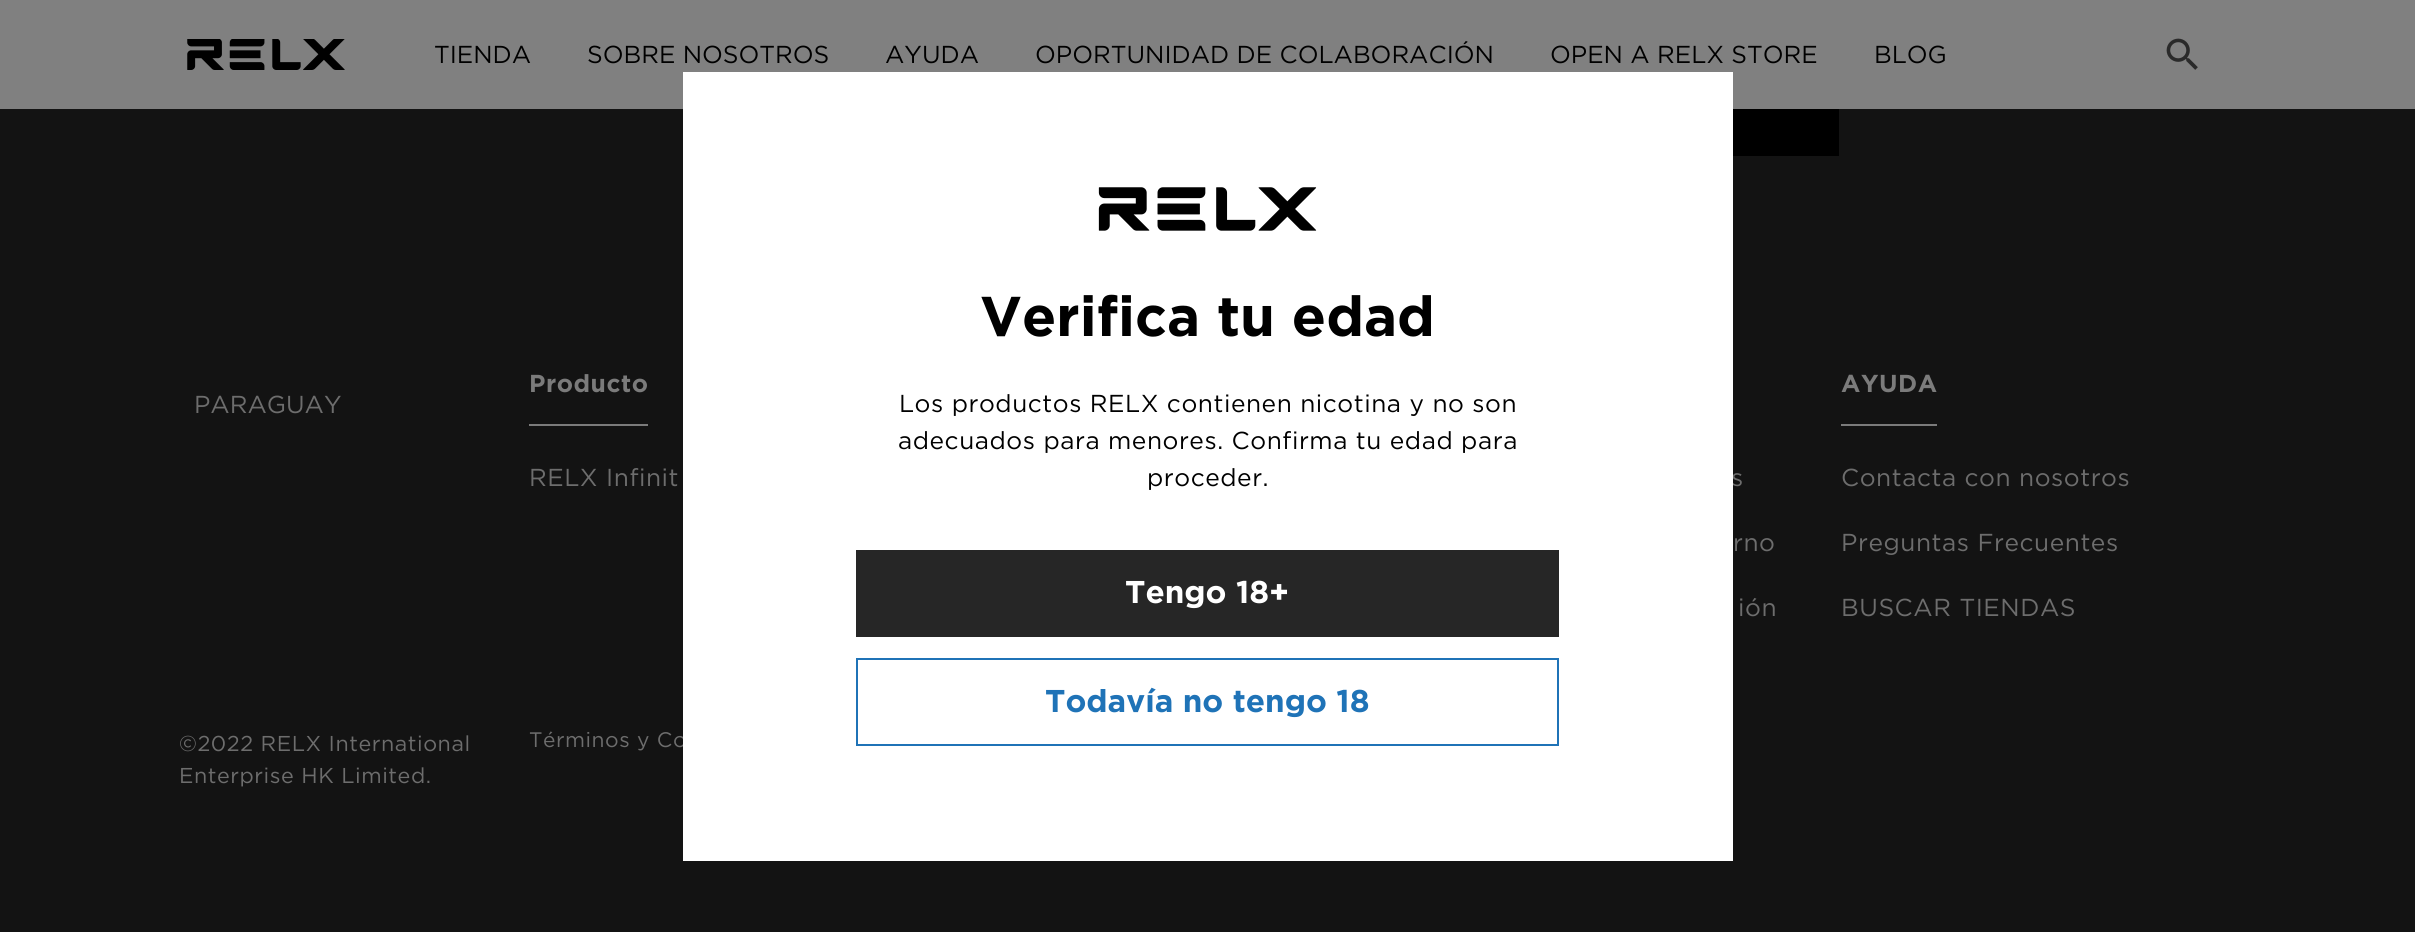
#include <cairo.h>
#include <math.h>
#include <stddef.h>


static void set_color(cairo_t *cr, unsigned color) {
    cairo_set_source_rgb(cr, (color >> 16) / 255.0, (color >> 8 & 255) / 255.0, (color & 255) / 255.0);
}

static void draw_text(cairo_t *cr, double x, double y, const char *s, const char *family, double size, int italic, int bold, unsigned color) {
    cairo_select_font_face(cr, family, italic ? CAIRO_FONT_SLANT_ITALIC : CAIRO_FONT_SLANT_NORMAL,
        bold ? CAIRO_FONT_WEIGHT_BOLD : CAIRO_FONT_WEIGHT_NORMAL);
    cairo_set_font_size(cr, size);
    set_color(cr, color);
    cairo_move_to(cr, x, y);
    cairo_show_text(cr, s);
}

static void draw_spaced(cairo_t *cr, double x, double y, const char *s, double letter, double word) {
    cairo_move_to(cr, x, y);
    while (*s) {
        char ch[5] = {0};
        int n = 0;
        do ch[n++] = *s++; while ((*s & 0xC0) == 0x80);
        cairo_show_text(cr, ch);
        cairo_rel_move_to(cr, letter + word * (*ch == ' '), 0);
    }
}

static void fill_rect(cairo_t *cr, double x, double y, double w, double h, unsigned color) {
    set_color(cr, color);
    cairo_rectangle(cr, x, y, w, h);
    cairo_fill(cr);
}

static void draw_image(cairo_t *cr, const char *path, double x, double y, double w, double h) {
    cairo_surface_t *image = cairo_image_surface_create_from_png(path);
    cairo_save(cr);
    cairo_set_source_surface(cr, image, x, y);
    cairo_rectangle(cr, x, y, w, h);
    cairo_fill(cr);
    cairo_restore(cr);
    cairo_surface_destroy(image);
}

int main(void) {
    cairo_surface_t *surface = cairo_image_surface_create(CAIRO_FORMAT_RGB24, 2415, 932);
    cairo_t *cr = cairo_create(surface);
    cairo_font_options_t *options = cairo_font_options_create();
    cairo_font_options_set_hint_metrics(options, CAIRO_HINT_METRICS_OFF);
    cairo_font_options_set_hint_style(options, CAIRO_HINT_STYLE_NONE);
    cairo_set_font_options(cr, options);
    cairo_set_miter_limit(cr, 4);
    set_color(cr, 0x131313);
    cairo_paint(cr);
    fill_rect(cr, 0, 0, 2415, 109, 0x808080);
    draw_image(cr, "assets/img1.png", 187, 39, 158, 31);
    draw_text(cr, 434, 63, "TIENDA", "Gotham", 24.5, 0, 0, 0x000000);
    draw_text(cr, 587, 63, "SOBRE NOSOTROS", "Gotham", 24.5, 0, 0, 0x000000);
    draw_text(cr, 885, 63, "AYUDA", "Gotham", 24.5, 0, 0, 0x000000);
    draw_text(cr, 1035, 63, "OPORTUNIDAD DE COLABORACIÓN", "Gotham", 24.5, 0, 0, 0x000000);
    draw_text(cr, 1550, 63, "OPEN A RELX STORE", "Gotham", 24.5, 0, 0, 0x000000);
    draw_text(cr, 1874, 63, "BLOG", "Gotham", 24.5, 0, 0, 0x000000);
    draw_image(cr, "assets/img2.png", 2166, 38, 32, 32);
    set_color(cr, 0x6D6D6D);
    draw_spaced(cr, 1731, 486, "s", 0.55, 0);
    cairo_set_font_size(cr, 21);
    draw_spaced(cr, 529, 747, "Términos y Co", 0.55, 0);
    fill_rect(cr, 683, 72, 1050, 789, 0xFFFFFF);
    draw_image(cr, "assets/img3.png", 1098, 187, 219, 44);
    draw_text(cr, 980, 336, "Verifica tu edad", "Gotham", 56, 0, 1, 0x000000);
    cairo_select_font_face(cr, "Gotham", CAIRO_FONT_SLANT_NORMAL, CAIRO_FONT_WEIGHT_NORMAL);
    cairo_set_font_size(cr, 24.5);
    draw_spaced(cr, 899, 412, "Los productos RELX contienen nicotina y no son", 0.55, 0);
    draw_spaced(cr, 898, 449, "adecuados para menores. Confirma tu edad para", 0.55, 0);
    draw_spaced(cr, 1147, 486, "proceder.", 0.55, 0);
    fill_rect(cr, 856, 550, 703, 87, 0x262626);
    draw_text(cr, 1125, 603, "Tengo 18+", "Gotham", 31.5, 0, 1, 0xFFFFFF);
    cairo_rectangle(cr, 857, 659, 701, 86);
    set_color(cr, 0x1F73B7);
    cairo_stroke(cr);
    draw_text(cr, 1045, 712, "Todavía no tengo 18", "Gotham", 31.5, 0, 1, 0x1F73B7);
    fill_rect(cr, 1733, 109, 106, 47, 0x000000);
    draw_text(cr, 194, 413, "PARAGUAY", "Gotham", 24.5, 0, 0, 0x6D6D6D);
    fill_rect(cr, 529, 424, 119, 2, 0x7B7B7B);
    cairo_select_font_face(cr, "Gotham", CAIRO_FONT_SLANT_NORMAL, CAIRO_FONT_WEIGHT_BOLD);
    draw_spaced(cr, 529, 392, "Producto", 0.55, 0);
    cairo_select_font_face(cr, "Gotham", CAIRO_FONT_SLANT_NORMAL, CAIRO_FONT_WEIGHT_NORMAL);
    set_color(cr, 0x6D6D6D);
    draw_spaced(cr, 529, 486, "RELX Infinit", 0.55, 0);
    draw_spaced(cr, 1733, 551, "rno", 0.55, 0);
    draw_spaced(cr, 1738, 616, "ión", 0.55, 0);
    fill_rect(cr, 1841, 424, 96, 2, 0x7B7B7B);
    cairo_select_font_face(cr, "Gotham", CAIRO_FONT_SLANT_NORMAL, CAIRO_FONT_WEIGHT_BOLD);
    draw_spaced(cr, 1841, 392, "AYUDA", 0.55, 0);
    cairo_select_font_face(cr, "Gotham", CAIRO_FONT_SLANT_NORMAL, CAIRO_FONT_WEIGHT_NORMAL);
    set_color(cr, 0x6D6D6D);
    draw_spaced(cr, 1841, 486, "Contacta con nosotros", 0.55, 0);
    draw_spaced(cr, 1841, 551, "Preguntas Frecuentes", 0.55, 0);
    draw_spaced(cr, 1841, 616, "BUSCAR TIENDAS", 0.55, 0);
    cairo_set_font_size(cr, 21.5);
    draw_spaced(cr, 179, 751, "©2022 RELX International", 0.55, 0);
    draw_spaced(cr, 179, 783, "Enterprise HK Limited.", 0.55, 0);
    cairo_surface_write_to_png(surface, "output.png");
    cairo_font_options_destroy(options);
    cairo_destroy(cr);
    cairo_surface_destroy(surface);
    return 0;
}
